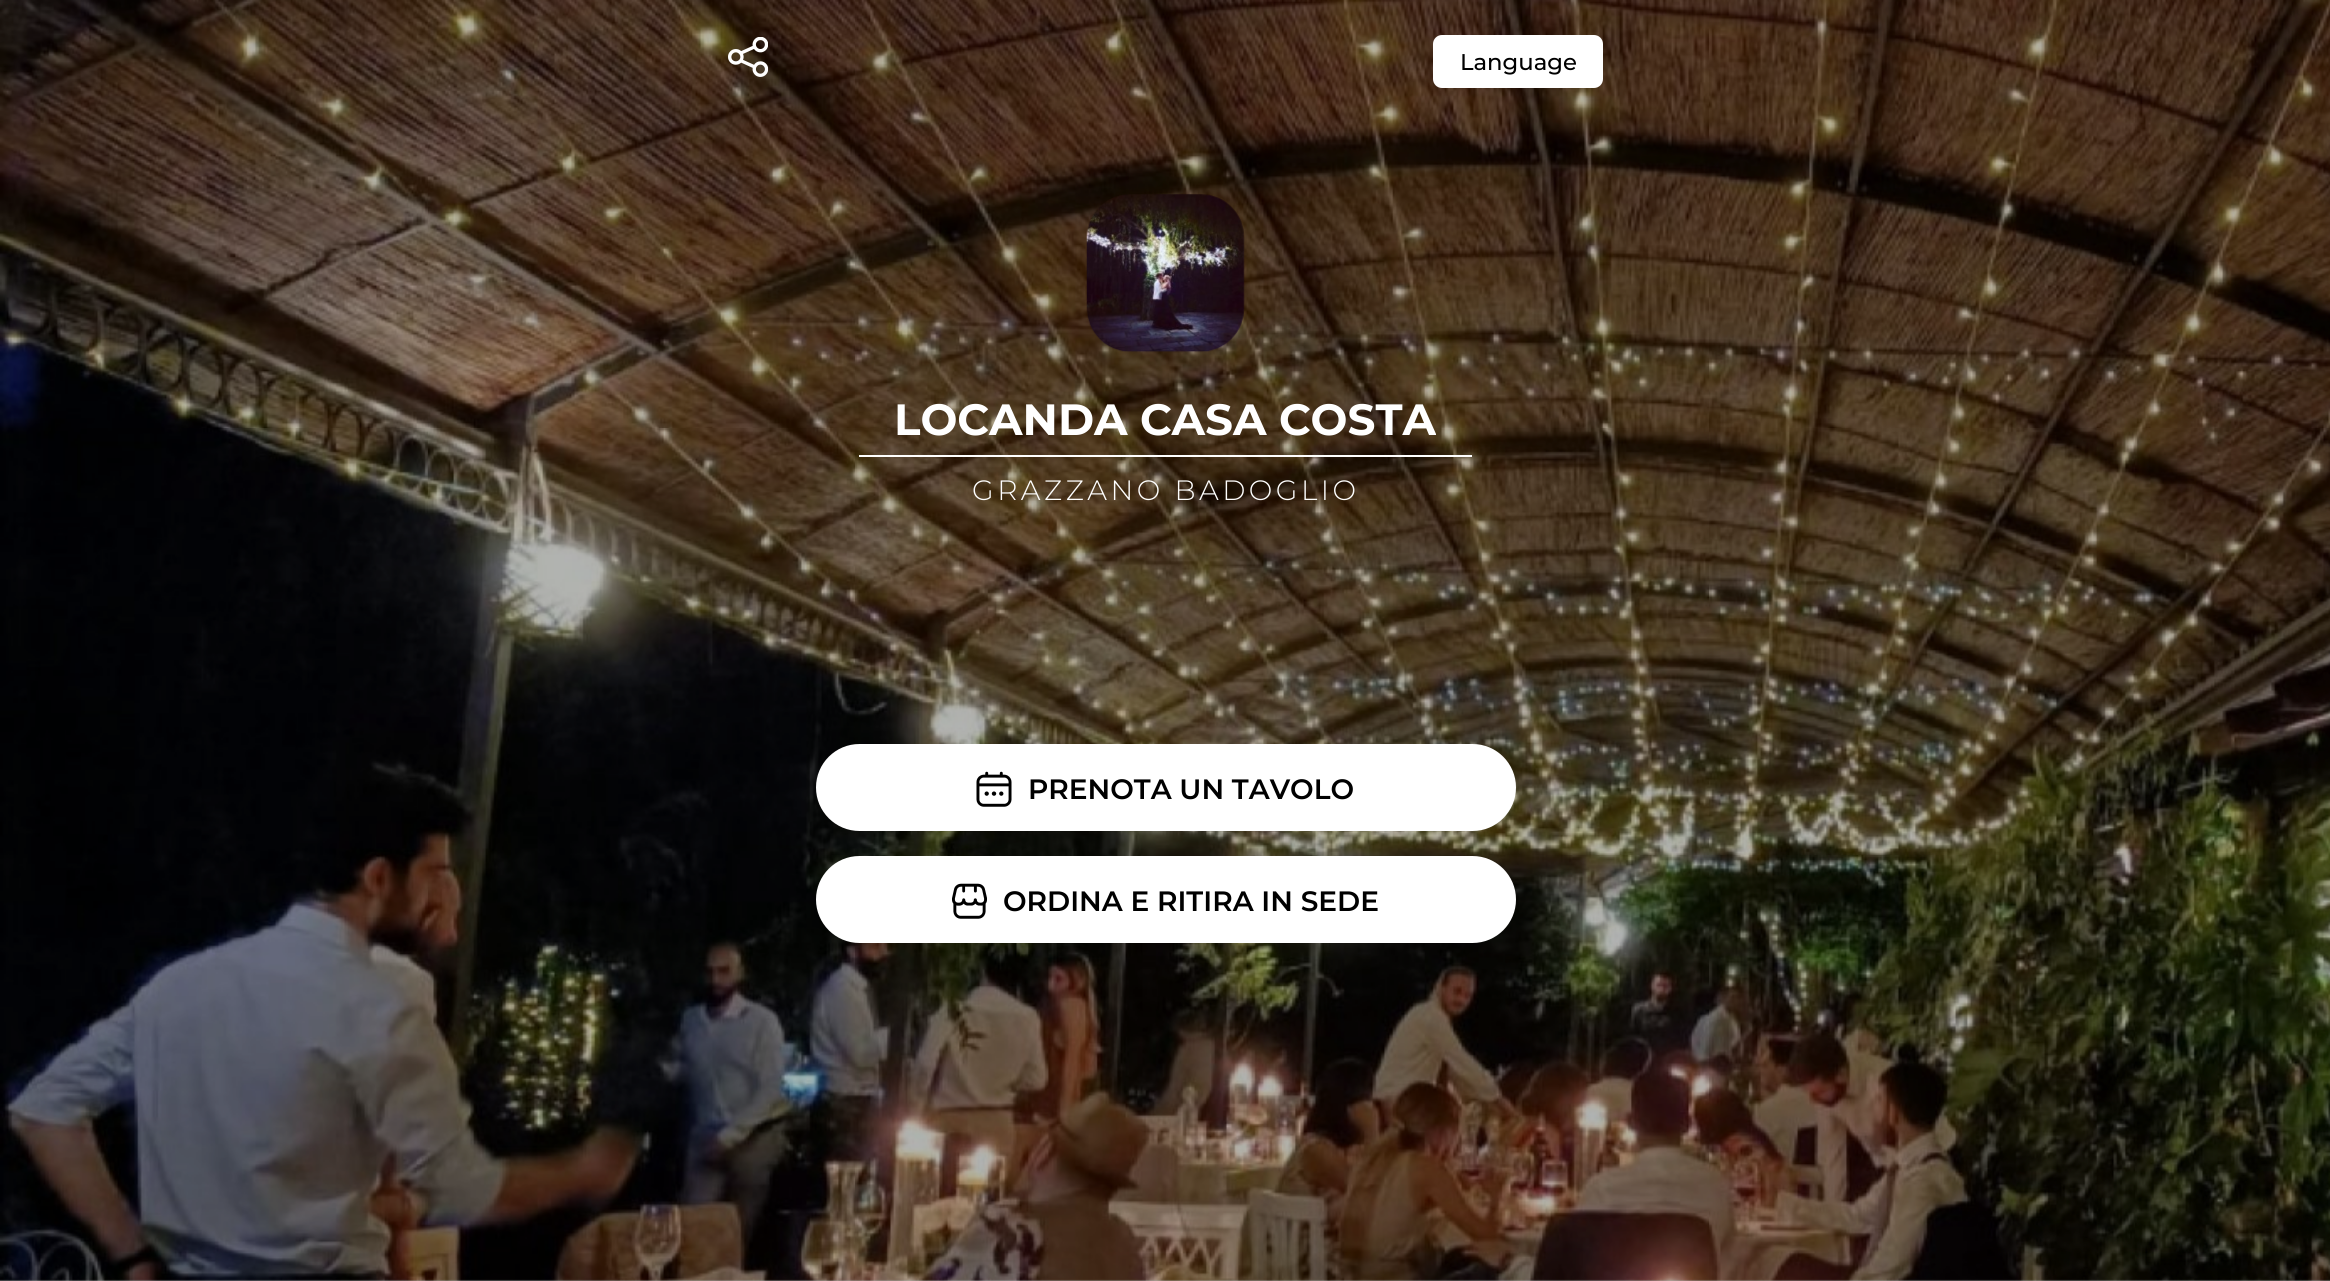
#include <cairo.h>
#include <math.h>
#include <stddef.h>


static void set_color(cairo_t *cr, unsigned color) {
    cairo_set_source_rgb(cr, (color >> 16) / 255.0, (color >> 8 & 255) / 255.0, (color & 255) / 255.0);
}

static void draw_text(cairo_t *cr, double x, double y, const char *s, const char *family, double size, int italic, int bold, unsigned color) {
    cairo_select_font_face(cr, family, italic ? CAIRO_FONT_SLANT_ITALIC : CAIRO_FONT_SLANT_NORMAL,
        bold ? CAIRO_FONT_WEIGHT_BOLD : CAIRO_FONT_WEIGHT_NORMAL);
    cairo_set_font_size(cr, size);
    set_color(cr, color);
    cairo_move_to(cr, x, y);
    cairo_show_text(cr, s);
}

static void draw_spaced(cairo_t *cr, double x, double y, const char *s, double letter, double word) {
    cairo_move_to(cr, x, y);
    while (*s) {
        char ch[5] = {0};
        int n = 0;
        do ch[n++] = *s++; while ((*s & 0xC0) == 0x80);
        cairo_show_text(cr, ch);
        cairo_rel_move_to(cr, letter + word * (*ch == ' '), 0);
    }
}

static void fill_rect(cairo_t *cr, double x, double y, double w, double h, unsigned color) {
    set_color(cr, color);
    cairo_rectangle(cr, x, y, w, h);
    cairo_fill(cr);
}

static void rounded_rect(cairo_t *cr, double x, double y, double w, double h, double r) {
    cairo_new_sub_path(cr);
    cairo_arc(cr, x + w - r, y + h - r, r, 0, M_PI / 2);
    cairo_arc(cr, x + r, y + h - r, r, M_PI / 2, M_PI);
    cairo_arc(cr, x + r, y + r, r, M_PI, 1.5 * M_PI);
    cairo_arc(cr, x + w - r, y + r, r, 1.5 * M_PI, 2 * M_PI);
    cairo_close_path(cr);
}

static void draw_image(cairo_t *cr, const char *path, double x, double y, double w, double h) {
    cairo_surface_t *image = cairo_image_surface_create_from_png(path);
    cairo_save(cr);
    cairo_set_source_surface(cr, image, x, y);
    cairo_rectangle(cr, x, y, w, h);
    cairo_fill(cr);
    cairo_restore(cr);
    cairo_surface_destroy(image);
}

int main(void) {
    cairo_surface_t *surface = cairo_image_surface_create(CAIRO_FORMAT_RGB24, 2330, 1281);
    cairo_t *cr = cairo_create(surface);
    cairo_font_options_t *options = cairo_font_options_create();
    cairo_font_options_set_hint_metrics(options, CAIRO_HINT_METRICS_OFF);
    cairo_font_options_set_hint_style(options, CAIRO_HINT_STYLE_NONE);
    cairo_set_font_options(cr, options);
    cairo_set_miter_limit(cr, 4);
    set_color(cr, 0xB3B3B3);
    cairo_paint(cr);
    draw_image(cr, "assets/img2.png", 0, 0, 2330, 1281);
    draw_image(cr, "assets/img1.png", 728, 37, 40, 40);
    set_color(cr, 0xFFFFFF);
    rounded_rect(cr, 1433, 35, 170, 53, 9);
    cairo_fill(cr);
    draw_text(cr, 1460, 70, "Language", "Montserrat Medium", 22.75, 0, 0, 0x000000);
    draw_image(cr, "assets/img3.png", 1086, 194, 159, 159);
    draw_text(cr, 894, 435, "LOCANDA CASA COSTA", "Montserrat", 43.75, 0, 1, 0xFFFFFF);
    fill_rect(cr, 859, 455, 613, 2, 0xFFFFFF);
    cairo_select_font_face(cr, "Montserrat Light", CAIRO_FONT_SLANT_NORMAL, CAIRO_FONT_WEIGHT_NORMAL);
    cairo_set_font_size(cr, 28);
    draw_spaced(cr, 972, 500, "GRAZZANO BADOGLIO", 3.5, 0);
    rounded_rect(cr, 816, 744, 700, 87, 43.5);
    cairo_fill(cr);
    draw_image(cr, "assets/img4.png", 976, 771, 36, 36);
    draw_text(cr, 1028, 799, "PRENOTA UN TAVOLO", "Montserrat SemiBold", 28, 0, 0, 0x000000);
    set_color(cr, 0xFFFFFF);
    rounded_rect(cr, 816, 856, 700, 87, 43.5);
    cairo_fill(cr);
    draw_image(cr, "assets/img5.png", 952, 883, 35, 36);
    draw_text(cr, 1003, 911, "ORDINA E RITIRA IN SEDE", "Montserrat SemiBold", 28, 0, 0, 0x000000);
    cairo_surface_write_to_png(surface, "output.png");
    cairo_font_options_destroy(options);
    cairo_destroy(cr);
    cairo_surface_destroy(surface);
    return 0;
}
